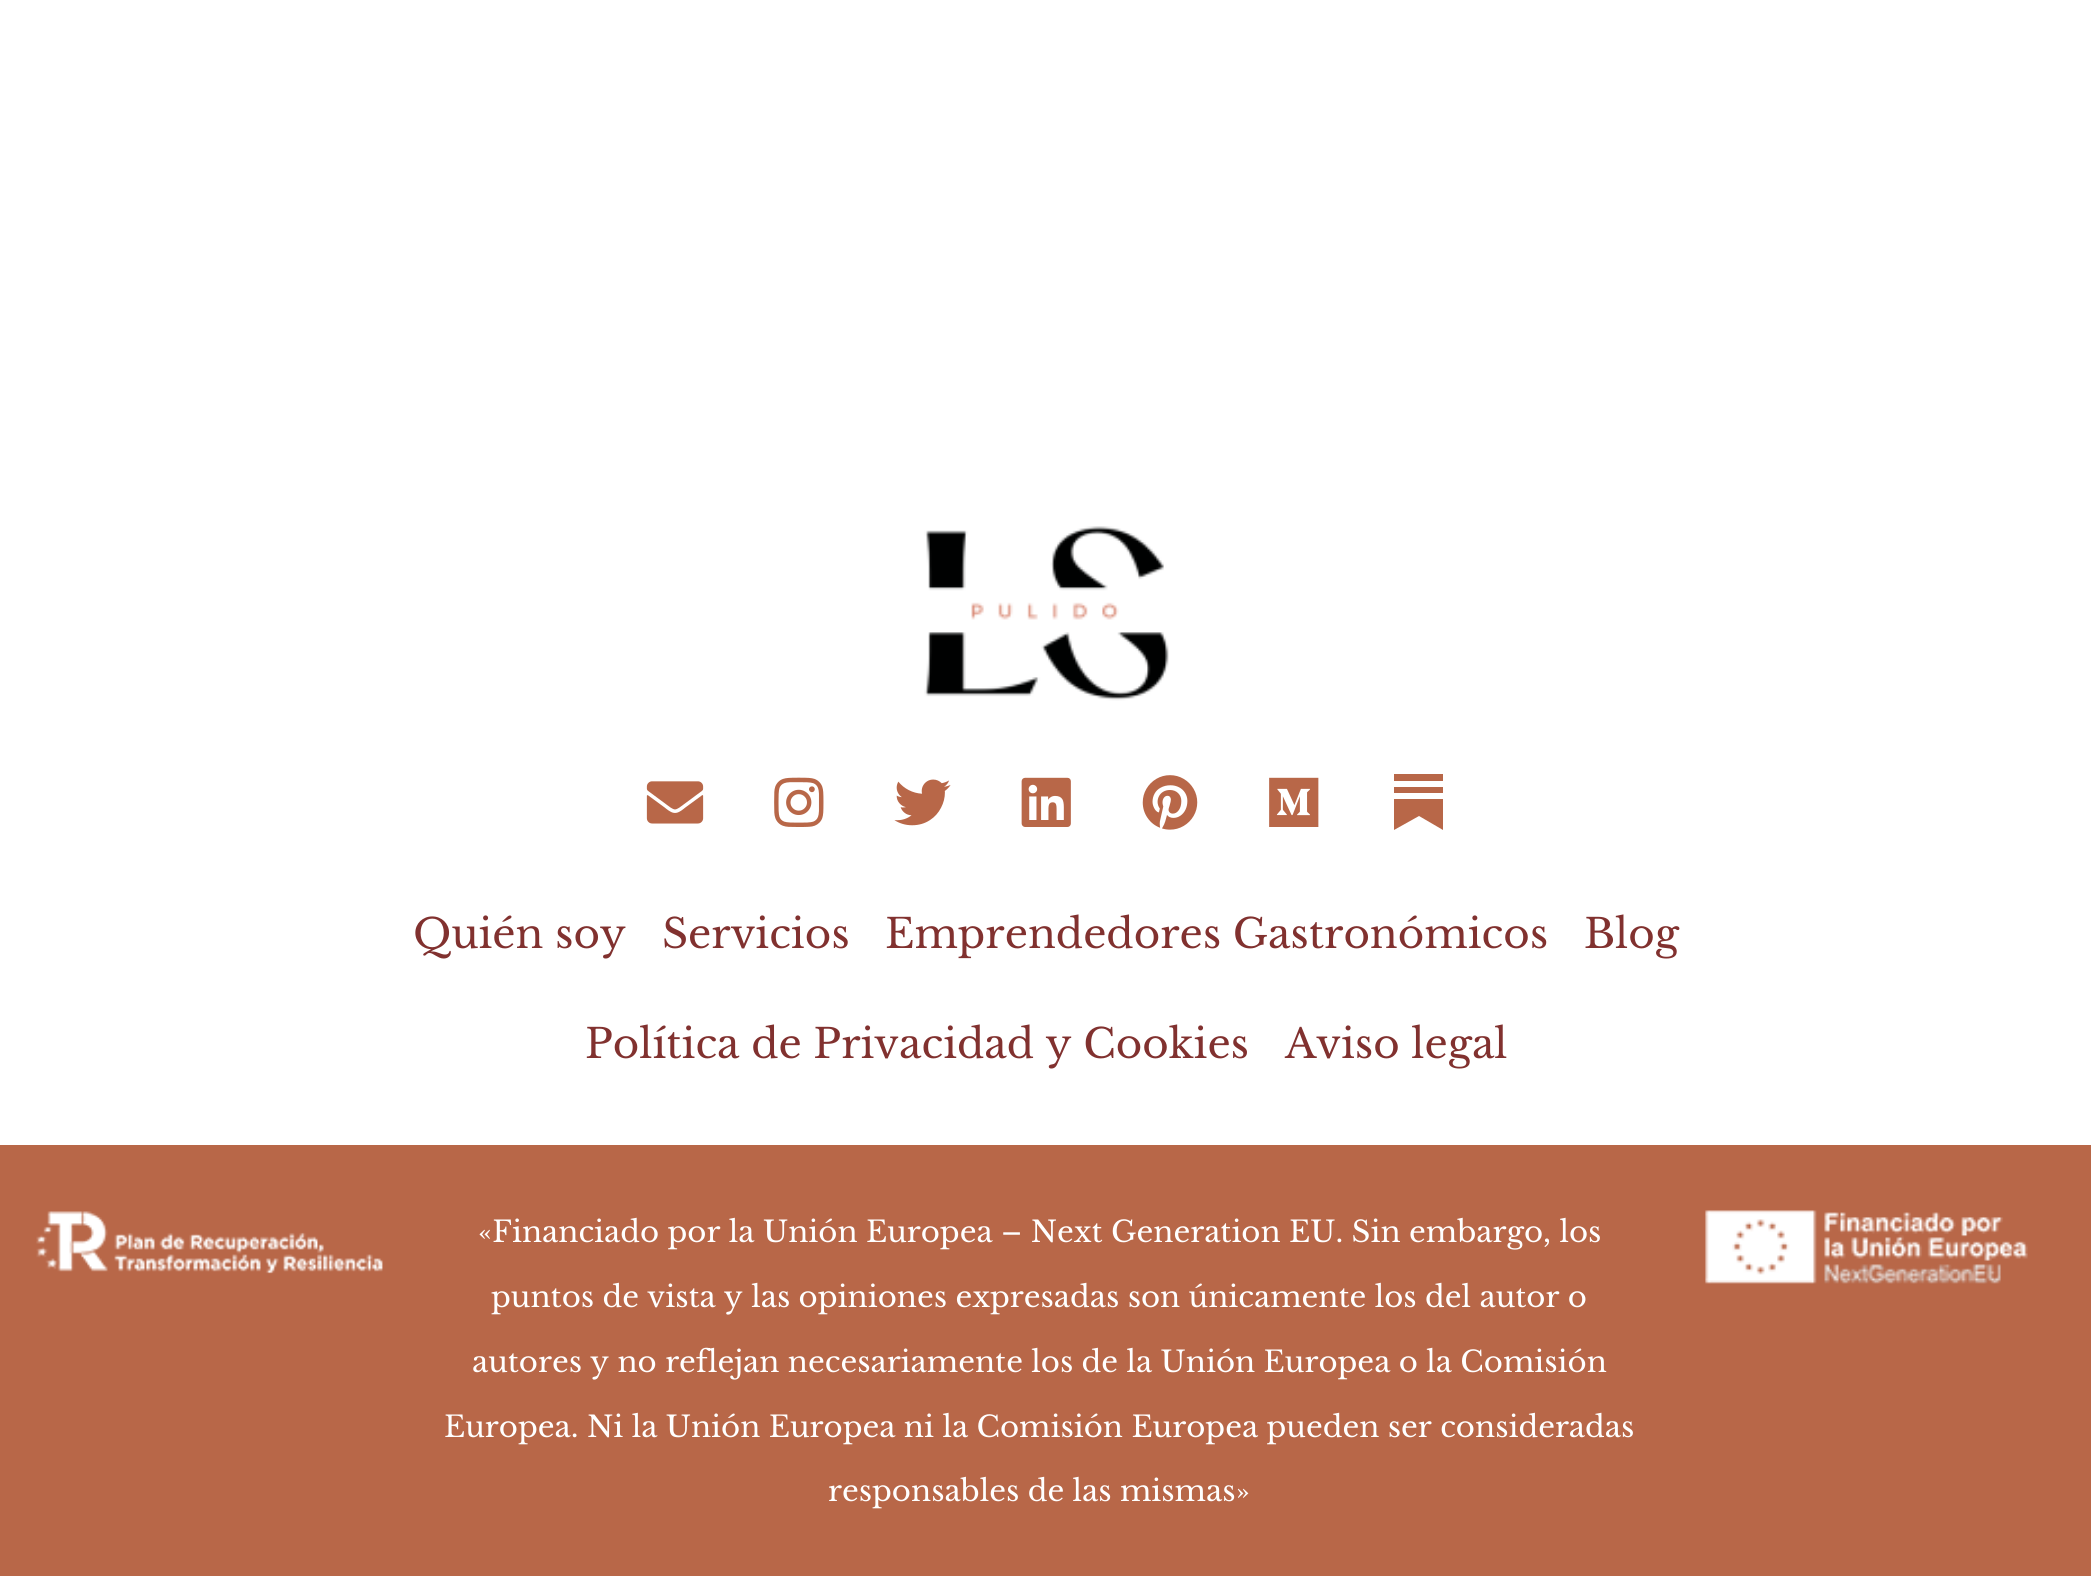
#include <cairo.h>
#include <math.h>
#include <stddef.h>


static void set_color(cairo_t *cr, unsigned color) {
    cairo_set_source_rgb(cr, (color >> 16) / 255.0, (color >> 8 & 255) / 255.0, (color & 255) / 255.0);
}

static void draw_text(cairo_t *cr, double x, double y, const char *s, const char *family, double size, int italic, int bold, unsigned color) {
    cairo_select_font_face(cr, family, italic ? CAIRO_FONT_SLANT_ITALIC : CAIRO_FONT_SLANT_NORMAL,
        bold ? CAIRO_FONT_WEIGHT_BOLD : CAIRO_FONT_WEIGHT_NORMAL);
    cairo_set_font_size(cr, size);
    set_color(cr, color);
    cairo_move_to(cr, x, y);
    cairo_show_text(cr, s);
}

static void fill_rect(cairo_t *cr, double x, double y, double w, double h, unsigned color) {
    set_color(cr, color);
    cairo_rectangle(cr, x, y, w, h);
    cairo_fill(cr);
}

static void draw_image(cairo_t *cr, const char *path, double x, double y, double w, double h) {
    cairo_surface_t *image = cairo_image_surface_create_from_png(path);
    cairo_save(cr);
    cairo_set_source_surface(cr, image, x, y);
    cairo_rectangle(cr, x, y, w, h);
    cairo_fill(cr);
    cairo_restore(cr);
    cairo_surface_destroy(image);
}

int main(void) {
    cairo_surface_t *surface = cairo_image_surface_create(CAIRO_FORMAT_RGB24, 2091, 1576);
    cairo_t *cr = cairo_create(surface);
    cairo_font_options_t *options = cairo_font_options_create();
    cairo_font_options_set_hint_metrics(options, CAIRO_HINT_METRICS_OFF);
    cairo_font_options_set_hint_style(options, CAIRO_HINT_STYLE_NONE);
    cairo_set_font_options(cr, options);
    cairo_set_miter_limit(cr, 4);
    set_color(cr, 0xFFFFFF);
    cairo_paint(cr);
    draw_image(cr, "assets/img1.png", 924, 526, 245, 175);
    draw_image(cr, "assets/img2.png", 646, 781, 58, 43);
    draw_image(cr, "assets/img3.png", 774, 777, 50, 50);
    draw_image(cr, "assets/img4.png", 894, 779, 57, 47);
    draw_image(cr, "assets/img5.png", 1021, 777, 50, 50);
    draw_image(cr, "assets/img6.png", 1142, 775, 56, 55);
    draw_image(cr, "assets/img7.png", 1269, 777, 50, 50);
    fill_rect(cr, 1394, 787, 49, 6, 0xB86748);
    cairo_new_path(cr);
    cairo_move_to(cr, 1394, 799);
    cairo_line_to(cr, 1394, 830);
    cairo_line_to(cr, 1419, 816);
    cairo_line_to(cr, 1443, 830);
    cairo_line_to(cr, 1443, 799);
    cairo_close_path(cr);
    cairo_fill(cr);
    fill_rect(cr, 1394, 774, 49, 7, 0xB86748);
    draw_text(cr, 413, 948, "Quién soy", "Libre Baskerville", 40.5, 0, 0, 0x81312F);
    draw_text(cr, 662, 948, "Servicios", "Libre Baskerville", 40.5, 0, 0, 0x81312F);
    draw_text(cr, 885, 948, "Emprendedores Gastronómicos", "Libre Baskerville", 40.5, 0, 0, 0x81312F);
    draw_text(cr, 1584, 948, "Blog", "Libre Baskerville", 40.5, 0, 0, 0x81312F);
    draw_text(cr, 585, 1058, "Política de Privacidad y Cookies", "Libre Baskerville", 40.5, 0, 0, 0x81312F);
    draw_text(cr, 1285, 1058, "Aviso legal", "Libre Baskerville", 40.5, 0, 0, 0x81312F);
    fill_rect(cr, 0, 1145, 2091, 431, 0xB86748);
    draw_image(cr, "assets/img8.png", 36, 1211, 347, 63);
    draw_text(cr, 478, 1242, "«Financiado por la Unión Europea – Next Generation EU. Sin embargo, los", "Libre Baskerville", 29.25, 0, 0, 0xFFFFFF);
    draw_text(cr, 491, 1307, "puntos de vista y las opiniones expresadas son únicamente los del autor o", "Libre Baskerville", 29.25, 0, 0, 0xFFFFFF);
    draw_text(cr, 472, 1372, "autores y no reflejan necesariamente los de la Unión Europea o la Comisión", "Libre Baskerville", 29.25, 0, 0, 0xFFFFFF);
    draw_text(cr, 444, 1437, "Europea. Ni la Unión Europea ni la Comisión Europea pueden ser consideradas", "Libre Baskerville", 29.25, 0, 0, 0xFFFFFF);
    draw_text(cr, 828, 1501, "responsables de las mismas»", "Libre Baskerville", 29.25, 0, 0, 0xFFFFFF);
    draw_image(cr, "assets/img9.png", 1705, 1210, 323, 74);
    cairo_surface_write_to_png(surface, "output.png");
    cairo_font_options_destroy(options);
    cairo_destroy(cr);
    cairo_surface_destroy(surface);
    return 0;
}
